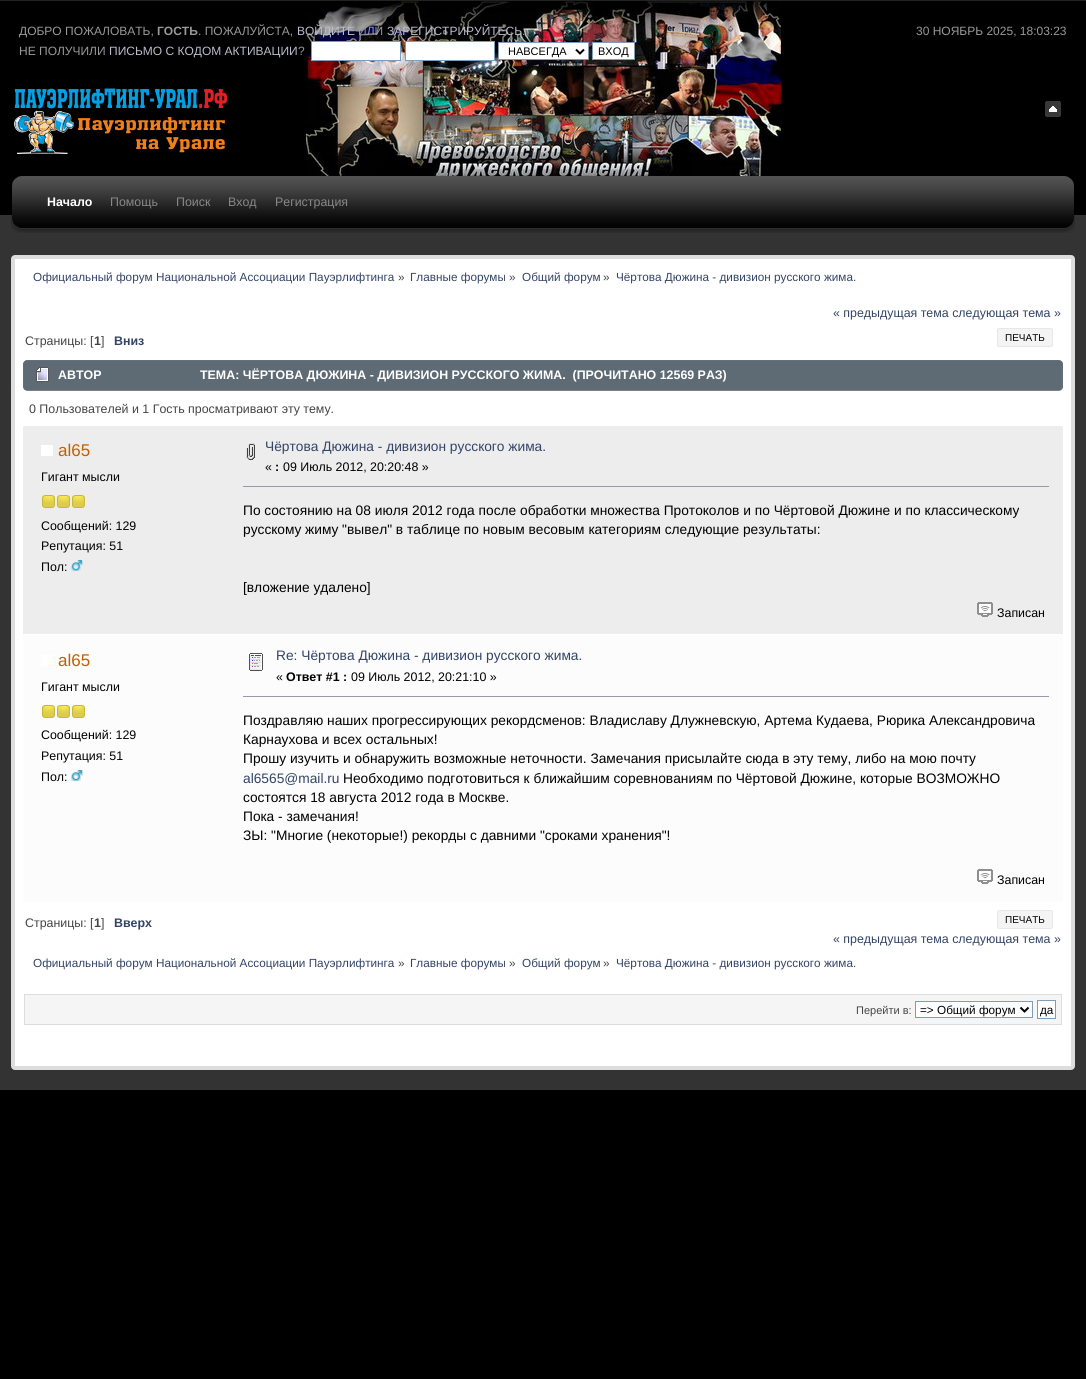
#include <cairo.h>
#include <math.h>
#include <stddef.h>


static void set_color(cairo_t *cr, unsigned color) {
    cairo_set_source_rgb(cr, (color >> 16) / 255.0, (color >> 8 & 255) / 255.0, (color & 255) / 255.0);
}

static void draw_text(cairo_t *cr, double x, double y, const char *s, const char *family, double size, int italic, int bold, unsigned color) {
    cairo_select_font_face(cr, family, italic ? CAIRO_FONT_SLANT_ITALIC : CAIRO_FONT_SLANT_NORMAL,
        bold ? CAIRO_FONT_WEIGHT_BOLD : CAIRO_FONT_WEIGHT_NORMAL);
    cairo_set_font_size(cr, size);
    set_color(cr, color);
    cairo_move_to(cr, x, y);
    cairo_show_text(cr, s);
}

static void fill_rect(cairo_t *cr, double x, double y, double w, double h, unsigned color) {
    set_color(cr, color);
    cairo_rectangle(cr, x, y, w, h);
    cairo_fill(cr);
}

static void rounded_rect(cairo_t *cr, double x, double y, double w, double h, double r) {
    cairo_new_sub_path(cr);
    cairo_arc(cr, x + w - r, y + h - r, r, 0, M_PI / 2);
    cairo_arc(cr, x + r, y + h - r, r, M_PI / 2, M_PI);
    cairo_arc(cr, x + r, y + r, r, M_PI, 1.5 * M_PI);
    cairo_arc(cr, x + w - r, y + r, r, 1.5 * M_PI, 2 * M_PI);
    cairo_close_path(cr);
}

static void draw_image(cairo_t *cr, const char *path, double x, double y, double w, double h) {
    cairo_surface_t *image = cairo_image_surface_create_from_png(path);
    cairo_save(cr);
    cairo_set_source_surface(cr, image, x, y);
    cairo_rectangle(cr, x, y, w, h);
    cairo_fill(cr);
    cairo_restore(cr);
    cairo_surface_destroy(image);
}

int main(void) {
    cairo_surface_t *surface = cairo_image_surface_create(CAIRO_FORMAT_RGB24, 1086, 1379);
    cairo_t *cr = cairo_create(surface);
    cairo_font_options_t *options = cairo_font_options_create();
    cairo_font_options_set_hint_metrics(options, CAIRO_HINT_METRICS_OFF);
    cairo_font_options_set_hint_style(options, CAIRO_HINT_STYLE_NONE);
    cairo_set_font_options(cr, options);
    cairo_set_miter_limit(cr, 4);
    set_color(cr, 0x000000);
    cairo_paint(cr);
    draw_image(cr, "assets/img1.png", 306, 1, 475, 175);
    fill_rect(cr, 0, 0, 1086, 1, 0x222222);
    draw_text(cr, 19, 35, "ДОБРО ПОЖАЛОВАТЬ,", "Liberation Sans", 12, 0, 0, 0x999999);
    draw_text(cr, 157, 35, "ГОСТЬ", "Liberation Sans", 12, 0, 1, 0x999999);
    draw_text(cr, 198, 35, ". ПОЖАЛУЙСТА,", "Liberation Sans", 12, 0, 0, 0x999999);
    draw_text(cr, 297, 35, "ВОЙДИТЕ", "Liberation Sans", 12, 0, 0, 0xBBBBCC);
    draw_text(cr, 358, 35, "ИЛИ", "Liberation Sans", 12, 0, 0, 0x999999);
    draw_text(cr, 387, 35, "ЗАРЕГИСТРИРУЙТЕСЬ", "Liberation Sans", 12, 0, 0, 0xBBBBCC);
    draw_text(cr, 522, 35, ".", "Liberation Sans", 12, 0, 0, 0x999999);
    draw_text(cr, 19, 55, "НЕ ПОЛУЧИЛИ", "Liberation Sans", 12, 0, 0, 0x999999);
    draw_text(cr, 109, 55, "ПИСЬМО С КОДОМ АКТИВАЦИИ", "Liberation Sans", 12, 0, 0, 0xBBBBCC);
    draw_text(cr, 298, 55, "?", "Liberation Sans", 12, 0, 0, 0x999999);
    set_color(cr, 0xFFFFFF);
    cairo_rectangle(cr, 311.5, 41.5, 89, 19);
    cairo_fill_preserve(cr);
    set_color(cr, 0x7F9DB9);
    cairo_set_line_width(cr, 1);
    cairo_stroke(cr);
    set_color(cr, 0xFFFFFF);
    cairo_rectangle(cr, 405.5, 41.5, 89, 19);
    cairo_fill_preserve(cr);
    set_color(cr, 0x7F9DB9);
    cairo_stroke(cr);
    set_color(cr, 0xFFFFFF);
    cairo_rectangle(cr, 498.5, 42.5, 90, 17);
    cairo_fill_preserve(cr);
    set_color(cr, 0x7F9DB9);
    cairo_stroke(cr);
    cairo_new_path(cr);
    cairo_move_to(cr, 576, 49.5);
    cairo_line_to(cr, 580, 53.5);
    cairo_line_to(cr, 584, 49.5);
    set_color(cr, 0x000000);
    cairo_set_line_width(cr, 2);
    cairo_stroke(cr);
    draw_text(cr, 508, 55, "НАВСЕГДА", "Liberation Sans", 11, 0, 0, 0x000000);
    set_color(cr, 0xFFFFFF);
    cairo_rectangle(cr, 592.5, 42.5, 42, 17);
    cairo_fill_preserve(cr);
    set_color(cr, 0x7F9DB9);
    cairo_set_line_width(cr, 1);
    cairo_stroke(cr);
    draw_text(cr, 598, 55, "ВХОД", "Liberation Sans", 11, 0, 0, 0x000000);
    draw_text(cr, 916, 35, "30 НОЯБРЬ 2025, 18:03:23", "Liberation Sans", 12, 0, 0, 0x999999);
    draw_image(cr, "assets/img2.png", 14, 88, 214, 66);
    draw_image(cr, "assets/img3.png", 1045, 101, 16, 16);
    fill_rect(cr, 0, 215, 1086, 875, 0x333333);
    draw_image(cr, "assets/img4.png", 1046, 176, 29, 57);
    draw_image(cr, "assets/img5.png", 11, 176, 26, 57);
    draw_image(cr, "assets/img6.png", 37, 174, 1009, 59);
    draw_text(cr, 47, 206, "Начало", "Liberation Sans", 12.4, 0, 1, 0xFFFFFF);
    draw_text(cr, 110, 206, "Помощь", "Liberation Sans", 12.4, 0, 0, 0x888888);
    draw_text(cr, 176, 206, "Поиск", "Liberation Sans", 12.4, 0, 0, 0x888888);
    draw_text(cr, 228, 206, "Вход", "Liberation Sans", 12.4, 0, 0, 0x888888);
    draw_text(cr, 275, 206, "Регистрация", "Liberation Sans", 12.4, 0, 0, 0x888888);
    set_color(cr, 0xFFFFFF);
    rounded_rect(cr, 13, 257, 1060, 811, 2);
    cairo_fill_preserve(cr);
    set_color(cr, 0xDDDDDD);
    cairo_set_line_width(cr, 4);
    cairo_stroke(cr);
    draw_text(cr, 33, 281, "Официальный форум Национальной Ассоциации Пауэрлифтинга", "Liberation Sans", 11.75, 0, 0, 0x334466);
    draw_text(cr, 398, 281, "»", "Liberation Sans", 11.75, 0, 0, 0x444444);
    draw_text(cr, 410, 281, "Главные форумы", "Liberation Sans", 11.75, 0, 0, 0x334466);
    draw_text(cr, 509, 281, "»", "Liberation Sans", 11.75, 0, 0, 0x444444);
    draw_text(cr, 522, 281, "Общий форум", "Liberation Sans", 11.75, 0, 0, 0x334466);
    draw_text(cr, 603, 281, "»", "Liberation Sans", 11.75, 0, 0, 0x444444);
    draw_text(cr, 616, 281, "Чёртова Дюжина - дивизион русского жима.", "Liberation Sans", 11.75, 0, 0, 0x334466);
    draw_text(cr, 833, 317, "« предыдущая тема следующая тема »", "Liberation Sans", 12.4, 0, 0, 0x334466);
    draw_text(cr, 25, 345, "Страницы: [", "Liberation Sans", 12.4, 0, 0, 0x444444);
    draw_text(cr, 94, 345, "1", "Liberation Sans", 12.4, 0, 1, 0x444444);
    draw_text(cr, 101, 345, "]", "Liberation Sans", 12.4, 0, 0, 0x444444);
    draw_text(cr, 114, 345, "Вниз", "Liberation Sans", 12.4, 0, 1, 0x334466);
    draw_image(cr, "assets/img7.png", 997, 328, 54, 19);
    draw_image(cr, "assets/img8.png", 1051, 328, 2, 19);
    draw_text(cr, 1005, 341, "ПЕЧАТЬ", "Liberation Sans", 10, 0, 0, 0x000000);
    draw_image(cr, "assets/img9.png", 23, 360, 1036, 31);
    draw_image(cr, "assets/img10.png", 1059, 360, 4, 31);
    draw_image(cr, "assets/img11.png", 36, 367, 13, 15);
    draw_text(cr, 58, 379, "АВТОР", "Liberation Sans", 12.4, 0, 1, 0xFFFFFF);
    draw_text(cr, 200, 379, "ТЕМА: ЧЁРТОВА ДЮЖИНА - ДИВИЗИОН РУССКОГО ЖИМА.  (ПРОЧИТАНО 12569 РАЗ)", "Liberation Sans", 12.4, 0, 1, 0xFFFFFF);
    draw_text(cr, 29, 413, "0 Пользователей и 1 Гость просматривают эту тему.", "Liberation Sans", 12.4, 0, 0, 0x444444);
    fill_rect(cr, 23, 426, 1040, 208, 0xEDEDED);
    draw_image(cr, "assets/img12.png", 23, 426, 2, 1);
    draw_image(cr, "assets/img13.png", 1061, 426, 2, 1);
    fill_rect(cr, 41, 445, 12, 11, 0xFFFFFF);
    draw_text(cr, 58, 456, "al65", "Liberation Sans", 17, 0, 0, 0xC06002);
    draw_text(cr, 41, 481, "Гигант мысли", "Liberation Sans", 12.4, 0, 0, 0x000000);
    draw_image(cr, "assets/img14.png", 42, 495, 13, 13);
    draw_image(cr, "assets/img14.png", 57, 495, 13, 13);
    draw_image(cr, "assets/img14.png", 72, 495, 13, 13);
    draw_text(cr, 41, 530, "Сообщений: 129", "Liberation Sans", 12.4, 0, 0, 0x000000);
    draw_text(cr, 41, 550, "Репутация: 51", "Liberation Sans", 12.4, 0, 0, 0x000000);
    draw_text(cr, 41, 571, "Пол:", "Liberation Sans", 12.4, 0, 0, 0x000000);
    draw_image(cr, "assets/img15.png", 71, 560, 12, 11);
    draw_image(cr, "assets/img16.png", 246, 443, 9, 17);
    draw_text(cr, 265, 451, "Чёртова Дюжина - дивизион русского жима.", "Liberation Sans", 13.75, 0, 0, 0x334466);
    draw_text(cr, 265, 471, "«", "Liberation Sans", 12.4, 0, 0, 0x000000);
    draw_text(cr, 275, 471, ":", "Liberation Sans", 12.4, 0, 1, 0x000000);
    draw_text(cr, 283, 471, "09 Июль 2012, 20:20:48 »", "Liberation Sans", 12.4, 0, 0, 0x000000);
    fill_rect(cr, 243, 486, 806, 1, 0x9999AA);
    draw_text(cr, 243, 515, "По состоянию на 08 июля 2012 года после обработки множества Протоколов и по Чёртовой Дюжине и по классическому", "Liberation Sans", 13.75, 0, 0, 0x000000);
    draw_text(cr, 243, 534, "русскому жиму \"вывел\" в таблице по новым весовым категориям следующие результаты:", "Liberation Sans", 13.75, 0, 0, 0x000000);
    draw_text(cr, 243, 592, "[вложение удалено]", "Liberation Sans", 13.75, 0, 0, 0x000000);
    draw_image(cr, "assets/img17.png", 977, 602, 16, 15);
    draw_text(cr, 997, 617, "Записан", "Liberation Sans", 12.4, 0, 0, 0x000000);
    fill_rect(cr, 23, 635, 1040, 267, 0xFCFCFC);
    fill_rect(cr, 41, 655, 12, 11, 0xFFFFFF);
    draw_text(cr, 58, 666, "al65", "Liberation Sans", 17, 0, 0, 0xC06002);
    draw_text(cr, 41, 691, "Гигант мысли", "Liberation Sans", 12.4, 0, 0, 0x000000);
    draw_image(cr, "assets/img18.png", 42, 705, 13, 13);
    draw_image(cr, "assets/img18.png", 57, 705, 13, 13);
    draw_image(cr, "assets/img18.png", 72, 705, 13, 13);
    draw_text(cr, 41, 739, "Сообщений: 129", "Liberation Sans", 12.4, 0, 0, 0x000000);
    draw_text(cr, 41, 760, "Репутация: 51", "Liberation Sans", 12.4, 0, 0, 0x000000);
    draw_text(cr, 41, 781, "Пол:", "Liberation Sans", 12.4, 0, 0, 0x000000);
    draw_image(cr, "assets/img19.png", 71, 770, 12, 11);
    draw_image(cr, "assets/img20.png", 249, 653, 14, 18);
    draw_text(cr, 276, 660, "Re: Чёртова Дюжина - дивизион русского жима.", "Liberation Sans", 13.75, 0, 0, 0x334466);
    draw_text(cr, 276, 681, "«", "Liberation Sans", 12.4, 0, 0, 0x000000);
    draw_text(cr, 286, 681, "Ответ #1 :", "Liberation Sans", 12.4, 0, 1, 0x000000);
    draw_text(cr, 351, 681, "09 Июль 2012, 20:21:10 »", "Liberation Sans", 12.4, 0, 0, 0x000000);
    fill_rect(cr, 243, 696, 806, 1, 0x9999AA);
    draw_text(cr, 243, 725, "Поздравляю наших прогрессирующих рекордсменов: Владиславу Длужневскую, Артема Кудаева, Рюрика Александровича", "Liberation Sans", 13.75, 0, 0, 0x000000);
    draw_text(cr, 243, 744, "Карнаухова и всех остальных!", "Liberation Sans", 13.75, 0, 0, 0x000000);
    draw_text(cr, 243, 763, "Прошу изучить и обнаружить возможные неточности. Замечания присылайте сюда в эту тему, либо на мою почту", "Liberation Sans", 13.75, 0, 0, 0x000000);
    draw_text(cr, 243, 783, "al6565@mail.ru", "Liberation Sans", 13.75, 0, 0, 0x334466);
    draw_text(cr, 343, 783, "Необходимо подготовиться к ближайшим соревнованиям по Чёртовой Дюжине, которые ВОЗМОЖНО", "Liberation Sans", 13.75, 0, 0, 0x000000);
    draw_text(cr, 243, 802, "состоятся 18 августа 2012 года в Москве.", "Liberation Sans", 13.75, 0, 0, 0x000000);
    draw_text(cr, 243, 821, "Пока - замечания!", "Liberation Sans", 13.75, 0, 0, 0x000000);
    draw_text(cr, 243, 840, "ЗЫ: \"Многие (некоторые!) рекорды с давними \"сроками хранения\"!", "Liberation Sans", 13.75, 0, 0, 0x000000);
    draw_image(cr, "assets/img21.png", 977, 869, 16, 15);
    draw_text(cr, 997, 884, "Записан", "Liberation Sans", 12.4, 0, 0, 0x000000);
    draw_text(cr, 25, 927, "Страницы: [", "Liberation Sans", 12.4, 0, 0, 0x444444);
    draw_text(cr, 94, 927, "1", "Liberation Sans", 12.4, 0, 1, 0x444444);
    draw_text(cr, 101, 927, "]", "Liberation Sans", 12.4, 0, 0, 0x444444);
    draw_text(cr, 114, 927, "Вверх", "Liberation Sans", 12.4, 0, 1, 0x334466);
    draw_image(cr, "assets/img7.png", 997, 910, 54, 19);
    draw_image(cr, "assets/img8.png", 1051, 910, 2, 19);
    draw_text(cr, 1005, 923, "ПЕЧАТЬ", "Liberation Sans", 10, 0, 0, 0x000000);
    draw_text(cr, 833, 943, "« предыдущая тема следующая тема »", "Liberation Sans", 12.4, 0, 0, 0x334466);
    draw_text(cr, 33, 967, "Официальный форум Национальной Ассоциации Пауэрлифтинга", "Liberation Sans", 11.75, 0, 0, 0x334466);
    draw_text(cr, 398, 967, "»", "Liberation Sans", 11.75, 0, 0, 0x444444);
    draw_text(cr, 410, 967, "Главные форумы", "Liberation Sans", 11.75, 0, 0, 0x334466);
    draw_text(cr, 509, 967, "»", "Liberation Sans", 11.75, 0, 0, 0x444444);
    draw_text(cr, 522, 967, "Общий форум", "Liberation Sans", 11.75, 0, 0, 0x334466);
    draw_text(cr, 603, 967, "»", "Liberation Sans", 11.75, 0, 0, 0x444444);
    draw_text(cr, 616, 967, "Чёртова Дюжина - дивизион русского жима.", "Liberation Sans", 11.75, 0, 0, 0x334466);
    set_color(cr, 0xF5F5F5);
    cairo_rectangle(cr, 24.5, 994.5, 1037, 30);
    cairo_fill_preserve(cr);
    set_color(cr, 0xDDDDDD);
    cairo_set_line_width(cr, 1);
    cairo_stroke(cr);
    draw_text(cr, 856, 1014, "Перейти в:", "Liberation Sans", 11, 0, 0, 0x444444);
    set_color(cr, 0xFFFFFF);
    cairo_rectangle(cr, 915.5, 1001.5, 117, 16);
    cairo_fill_preserve(cr);
    set_color(cr, 0x7F9DB9);
    cairo_stroke(cr);
    cairo_new_path(cr);
    cairo_move_to(cr, 1020.5, 1007.5);
    cairo_line_to(cr, 1024.5, 1011.5);
    cairo_line_to(cr, 1028.5, 1007.5);
    set_color(cr, 0x000000);
    cairo_set_line_width(cr, 2);
    cairo_stroke(cr);
    draw_text(cr, 920, 1014, "=> Общий форум", "Liberation Sans", 11.75, 0, 0, 0x000000);
    set_color(cr, 0xFFFFFF);
    cairo_rectangle(cr, 1037.5, 1000.5, 18, 18);
    cairo_fill_preserve(cr);
    set_color(cr, 0x7F9DB9);
    cairo_set_line_width(cr, 1);
    cairo_stroke(cr);
    draw_text(cr, 1040, 1014, "да", "Liberation Sans", 11.75, 0, 0, 0x000000);
    cairo_surface_write_to_png(surface, "output.png");
    cairo_font_options_destroy(options);
    cairo_destroy(cr);
    cairo_surface_destroy(surface);
    return 0;
}
